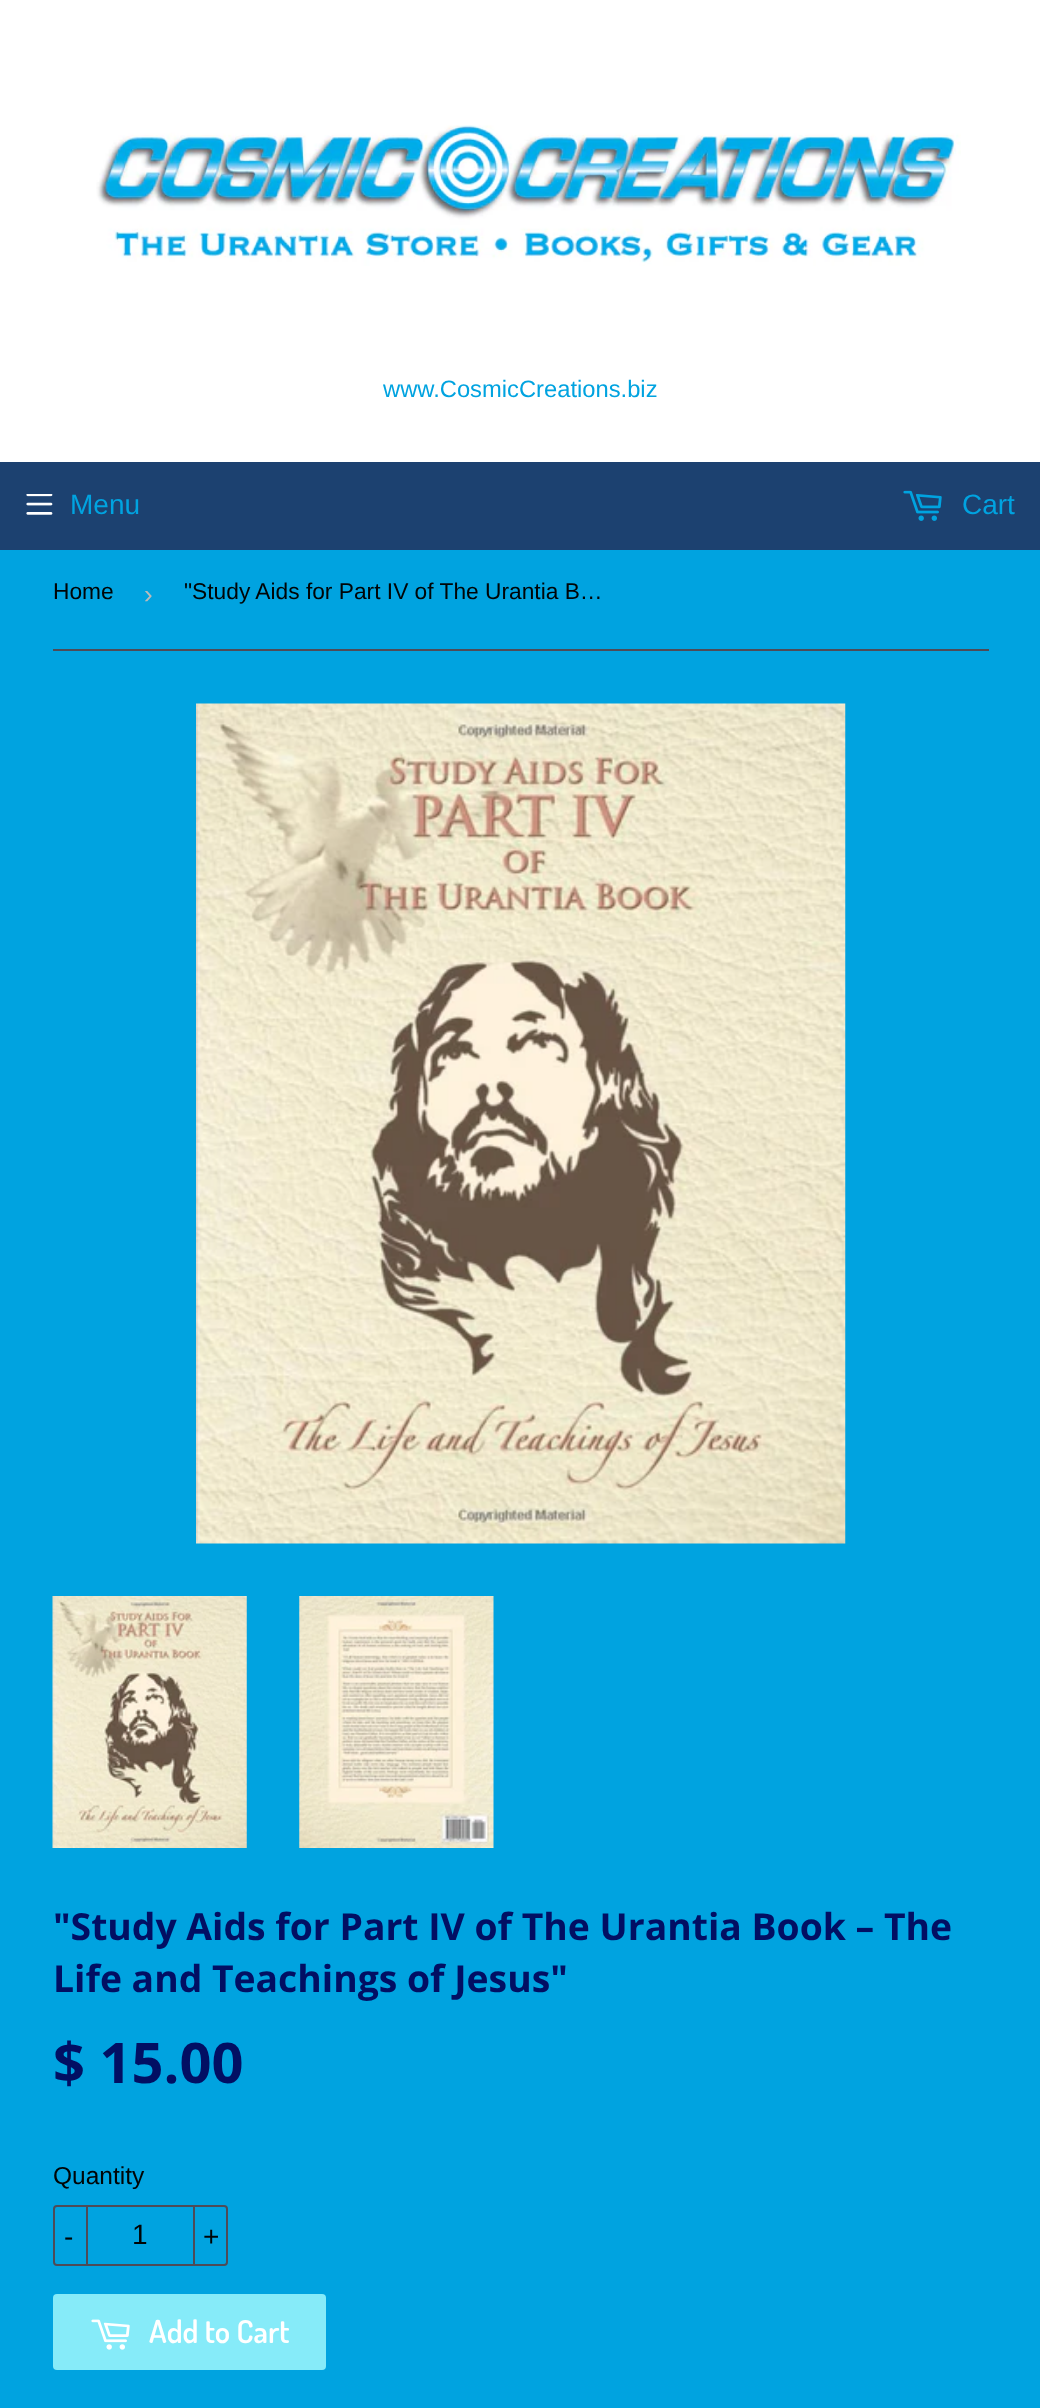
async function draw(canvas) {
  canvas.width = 1040;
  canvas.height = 2408;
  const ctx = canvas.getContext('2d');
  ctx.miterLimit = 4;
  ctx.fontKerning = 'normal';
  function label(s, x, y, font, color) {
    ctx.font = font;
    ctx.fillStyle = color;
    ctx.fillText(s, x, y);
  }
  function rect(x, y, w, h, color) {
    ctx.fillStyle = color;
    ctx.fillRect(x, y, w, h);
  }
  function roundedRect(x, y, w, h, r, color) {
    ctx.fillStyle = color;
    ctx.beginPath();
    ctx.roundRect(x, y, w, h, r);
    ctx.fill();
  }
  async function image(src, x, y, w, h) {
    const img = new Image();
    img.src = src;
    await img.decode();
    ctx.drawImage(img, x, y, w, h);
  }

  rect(0, 0, 1040, 2408, '#00a3e0');
  rect(0, 0, 1040, 462, '#fff');
  await image('assets/img1.png', 96, 125, 865, 141);
  label('www.CosmicCreations.biz', 383, 397, '23.75px Liberation Sans', '#00a3e0');
  rect(0, 462, 1040, 88, '#1c4170');
  await image('assets/img2.png', 26, 494, 27, 21);
  label('Menu', 70, 514, '28px Liberation Sans', '#00a3e0');
  await image('assets/img3.png', 903, 490, 39, 31);
  label('Cart', 962, 514, '28px Liberation Sans', '#00a3e0');
  rect(53, 649, 936, 2, '#4e4b57');
  label('Home', 53, 599, '22.75px Liberation Sans', '#000506');
  label('›', 144, 603, '26px Liberation Sans', '#bbb');
  label('"Study Aids for Part IV of The Urantia B…', 184, 599, '22.75px Liberation Sans', '#000506');
  await image('assets/img4.png', 196, 703, 650, 841);
  await image('assets/img5.png', 52, 1596, 195, 252);
  await image('assets/img6.png', 299, 1596, 195, 252);
  label('"Study Aids for Part IV of The Urantia Book – The', 53, 1940, 'bold 37.3px Open Sans', '#020f63');
  label('Life and Teachings of Jesus"', 53, 1992, 'bold 37.3px Open Sans', '#020f63');
  label('$ 15.00', 53, 2083, 'bold 56px Open Sans', '#020f63');
  label('Quantity', 53, 2184, '24.5px Liberation Sans', '#000506');
  ctx.beginPath();
  ctx.roundRect(54, 2206, 173, 59, 3);
  ctx.strokeStyle = '#4e4b57';
  ctx.lineWidth = 2;
  ctx.stroke();
  rect(86, 2205, 2, 61, '#4e4b57');
  label('-', 64, 2246, '28px Liberation Sans', '#000506');
  label('1', 132, 2244, '28px Liberation Sans', '#000506');
  rect(193, 2205, 2, 61, '#4e4b57');
  label('+', 203, 2246, '28px Liberation Sans', '#000506');
  roundedRect(53, 2294, 273, 76, 4, '#86ebf9');
  await image('assets/img7.png', 91, 2319, 39, 31);
  label('Add to Cart', 149, 2343, '600 31.5px Dosis', '#fff');
}

draw(document.querySelector('canvas'));
